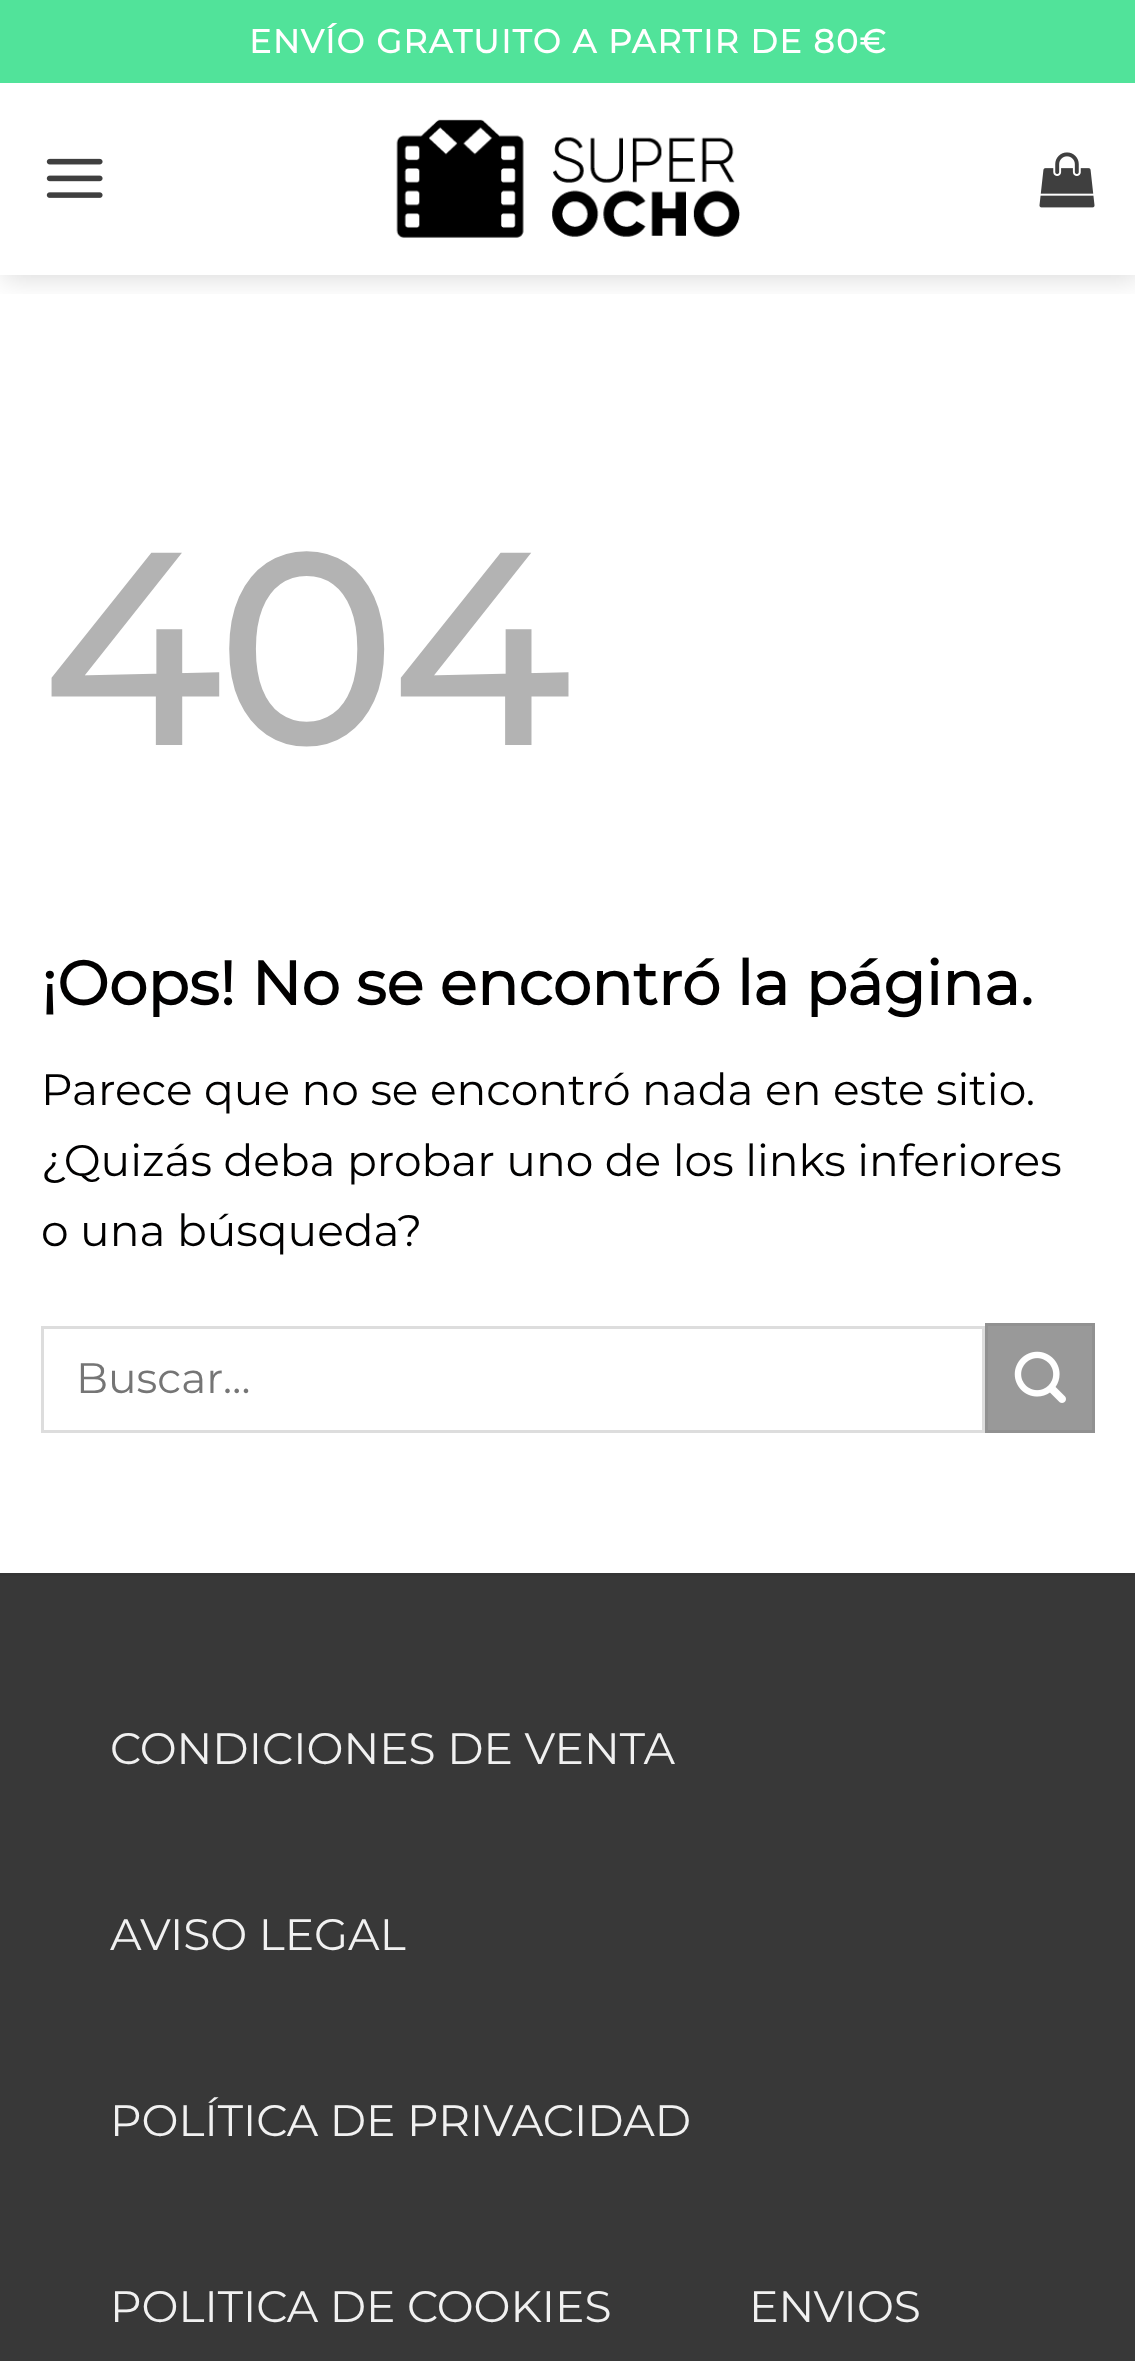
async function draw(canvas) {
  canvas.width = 1135;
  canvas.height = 2361;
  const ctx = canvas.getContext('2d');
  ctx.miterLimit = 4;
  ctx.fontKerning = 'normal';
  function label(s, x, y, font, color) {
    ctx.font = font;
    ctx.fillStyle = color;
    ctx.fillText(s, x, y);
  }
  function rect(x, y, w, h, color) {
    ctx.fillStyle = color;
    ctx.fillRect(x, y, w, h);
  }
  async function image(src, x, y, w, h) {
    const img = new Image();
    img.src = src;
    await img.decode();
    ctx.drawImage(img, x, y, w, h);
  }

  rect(0, 0, 1135, 2361, '#fff');
  ctx.save();
  ctx.beginPath();
  ctx.rect(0, 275, 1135, 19);
  ctx.clip();
  ctx.fillStyle = '#00000026';
  ctx.filter = 'blur(14px)';
  ctx.beginPath();
  ctx.rect(3, 3, 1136, 275);
  ctx.fill();
  ctx.filter = 'none';
  ctx.restore();
  rect(0, 0, 1135, 83, '#51e39a');
  ctx.letterSpacing = '1.65px';
  label('ENVÍO GRATUITO A PARTIR DE 80€', 249, 53, 'bold 33px Montserrat', '#fff');
  await image('assets/img1.png', 46, 158, 57, 40);
  await image('assets/img2.png', 396, 119, 344, 119);
  await image('assets/img3.png', 1039, 152, 56, 56);
  ctx.letterSpacing = '0px';
  label('404', 41, 745, 'bold 264px Montserrat', '#b3b3b3');
  label('¡Oops! No se encontró la página.', 41, 1005, 'bold 61.6px Montserrat', '#010000');
  label('Parece que no se encontró nada en este sitio.', 41, 1105, '100 44px Montserrat', '#010000');
  label('¿Quizás deba probar uno de los links inferiores', 41, 1176, '100 44px Montserrat', '#010000');
  label('o una búsqueda?', 41, 1246, '100 44px Montserrat', '#010000');
  ctx.strokeStyle = '#ddd';
  ctx.lineWidth = 3;
  ctx.strokeRect(42.5, 1327.5, 941, 104);
  label('Buscar…', 76, 1393, '100 42.5px Montserrat', '#757575');
  ctx.fillStyle = '#999';
  ctx.beginPath();
  ctx.rect(986.5, 1324.5, 107, 107);
  ctx.fill();
  ctx.strokeStyle = '#919191';
  ctx.stroke();
  await image('assets/img4.png', 1014, 1351, 52, 52);
  rect(0, 1576, 1135, 785, '#383838');
  rect(0, 1573, 1135, 3, '#353535');
  label('CONDICIONES DE VENTA', 110, 1764, '100 44px Montserrat', '#f1f1f1');
  label('AVISO LEGAL', 110, 1950, '100 44px Montserrat', '#f1f1f1');
  label('POLÍTICA DE PRIVACIDAD', 110, 2136, '100 44px Montserrat', '#f1f1f1');
  label('POLITICA DE COOKIES', 110, 2322, '100 44px Montserrat', '#f1f1f1');
  label('ENVIOS', 749, 2322, '100 44px Montserrat', '#f1f1f1');
}

draw(document.querySelector('canvas'));
